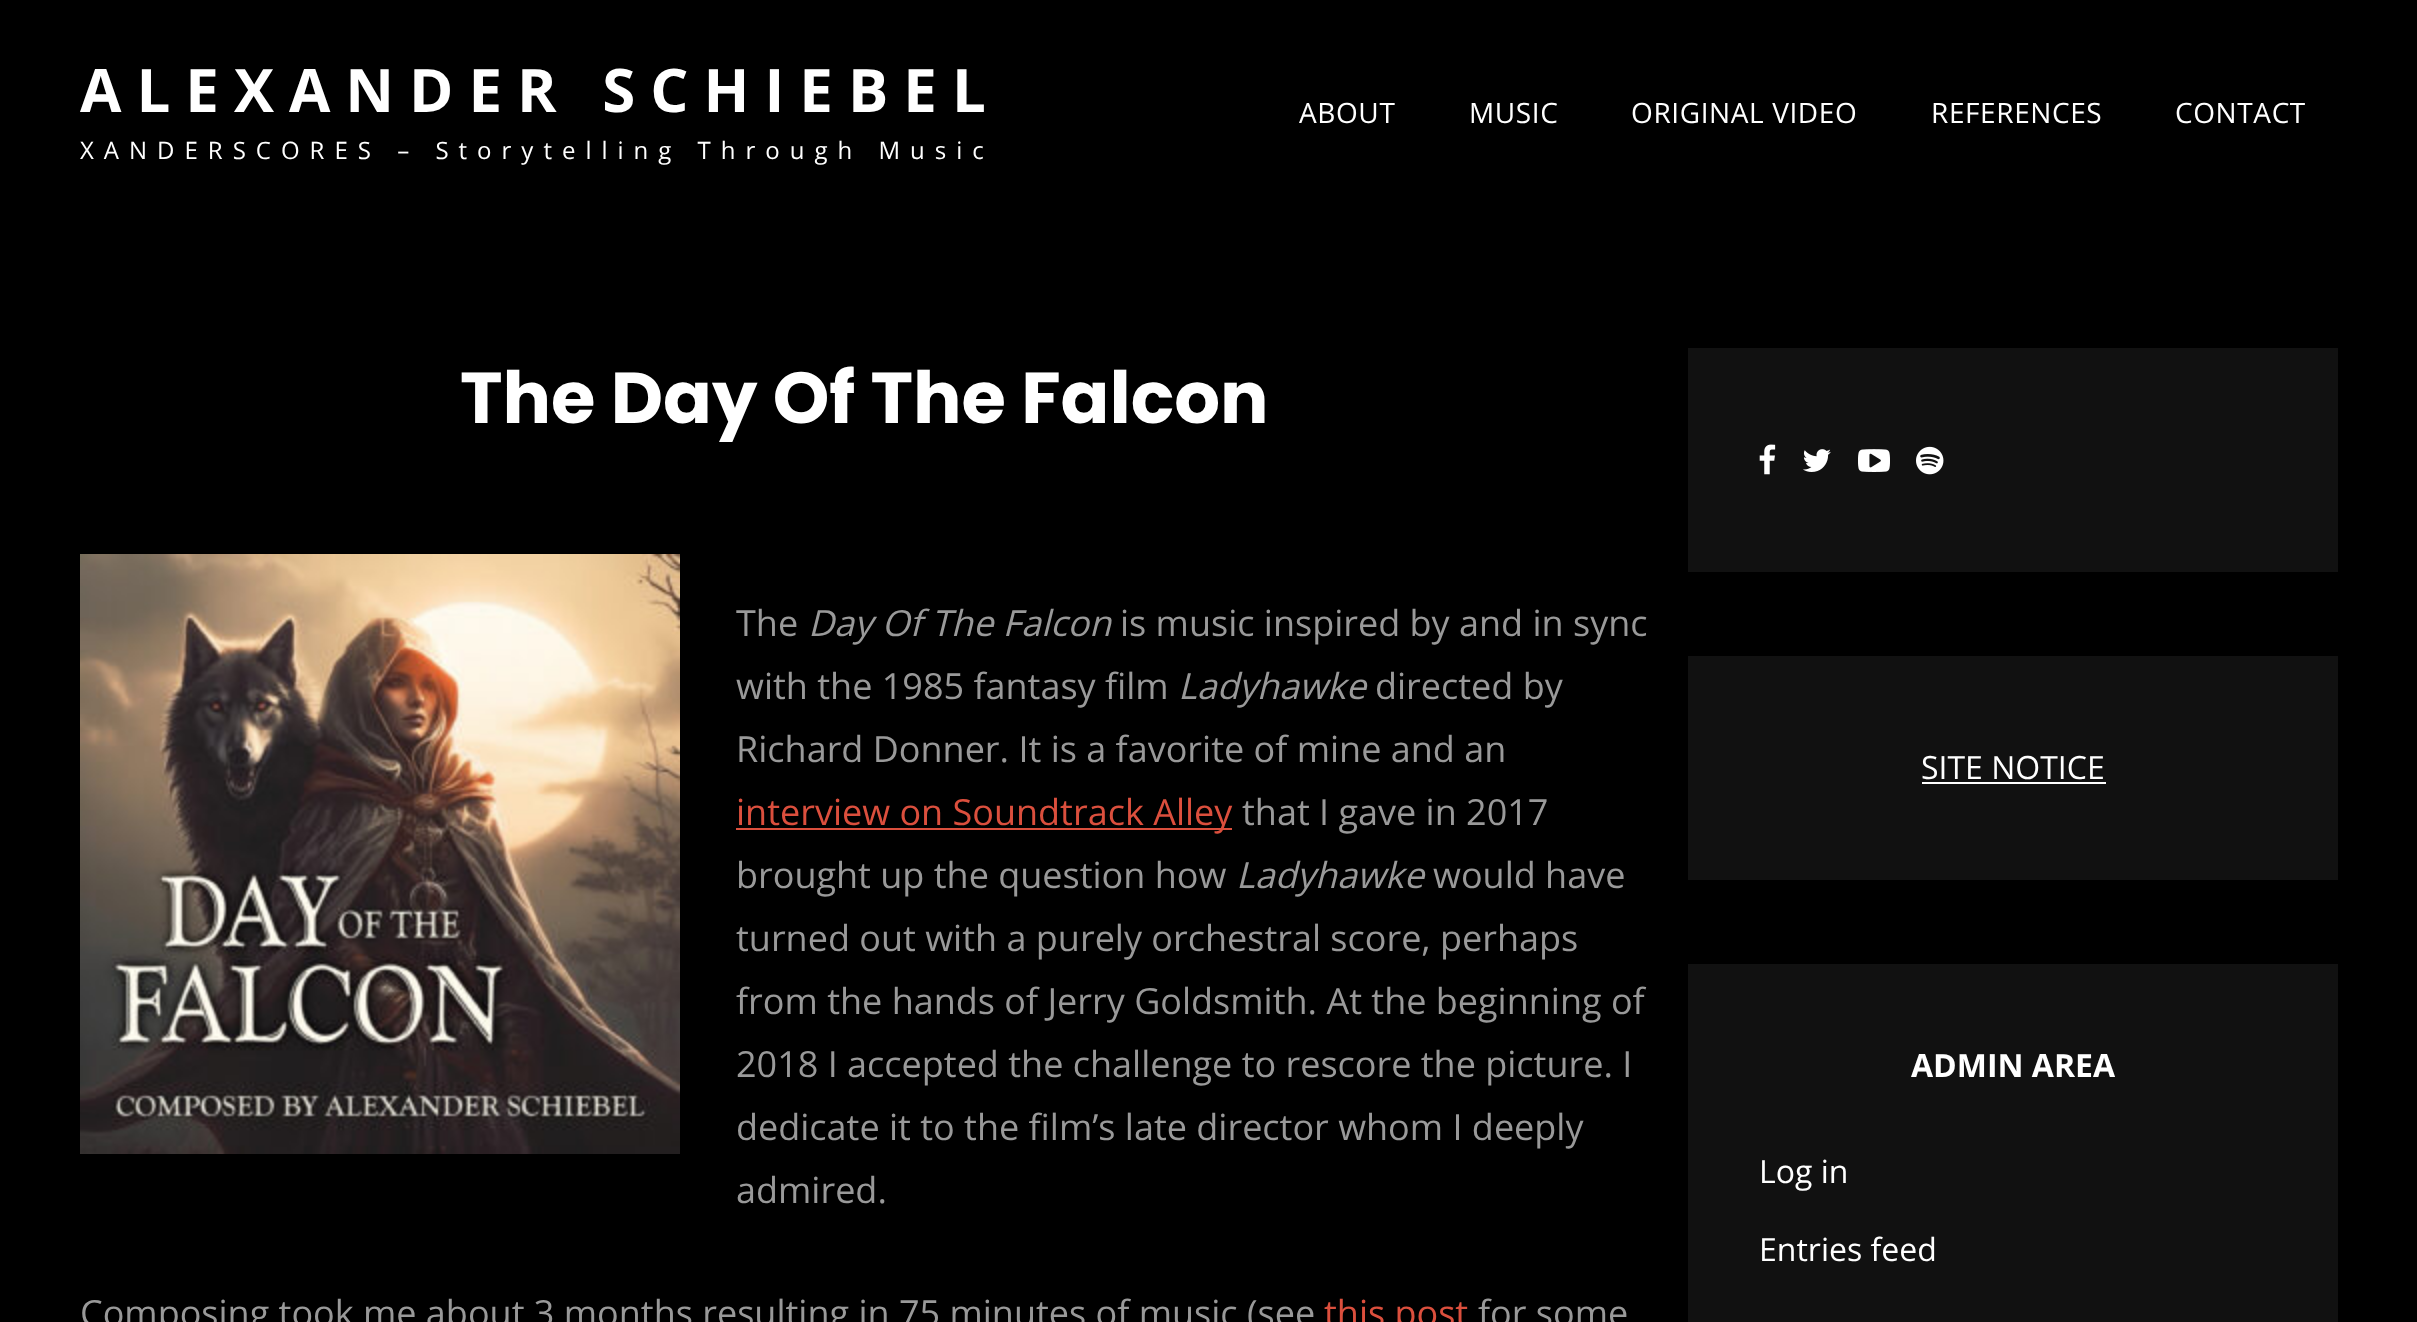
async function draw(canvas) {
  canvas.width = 2417;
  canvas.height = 1322;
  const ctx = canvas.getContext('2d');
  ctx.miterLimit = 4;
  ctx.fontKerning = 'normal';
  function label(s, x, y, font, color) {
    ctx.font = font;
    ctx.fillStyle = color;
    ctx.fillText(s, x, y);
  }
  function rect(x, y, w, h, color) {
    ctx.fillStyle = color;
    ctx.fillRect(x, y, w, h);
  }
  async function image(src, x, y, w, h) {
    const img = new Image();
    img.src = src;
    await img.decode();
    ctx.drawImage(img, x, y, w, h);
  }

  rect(0, 0, 2417, 1322, '#000');
  ctx.letterSpacing = '15px';
  label('ALEXANDER SCHIEBEL', 80, 112, 'bold 60px Open Sans', '#fff');
  ctx.letterSpacing = '10px';
  label('XANDERSCORES – Storytelling Through Music', 80, 159, '24px Open Sans', '#fff');
  ctx.letterSpacing = '0.6px';
  label('ABOUT', 1299, 123, '28px Open Sans', '#fff');
  label('MUSIC', 1469, 123, '28px Open Sans', '#fff');
  label('ORIGINAL VIDEO', 1631, 123, '28px Open Sans', '#fff');
  label('REFERENCES', 1931, 123, '28px Open Sans', '#fff');
  label('CONTACT', 2175, 123, '28px Open Sans', '#fff');
  ctx.letterSpacing = '0px';
  label('The Day Of The Falcon', 460, 423, 'bold 72px Poppins', '#fff');
  await image('assets/img1.png', 80, 554, 600, 600);
  label('The', 736, 636, '36px Open Sans', '#999');
  label('Day Of The Falcon', 808, 636, 'italic 36px Open Sans', '#999');
  label('is music inspired by and in sync', 1120, 636, '36px Open Sans', '#999');
  label('with the 1985 fantasy film', 736, 699, '36px Open Sans', '#999');
  label('Ladyhawke', 1178, 699, 'italic 36px Open Sans', '#999');
  label('directed by', 1375, 699, '36px Open Sans', '#999');
  label('Richard Donner. It is a favorite of mine and an', 736, 762, '36px Open Sans', '#999');
  rect(736, 828, 496, 2, '#db4f3d');
  label('interview on Soundtrack Alley', 736, 825, '36px Open Sans', '#db4f3d');
  label('that I gave in 2017', 1242, 825, '36px Open Sans', '#999');
  label('brought up the question how', 736, 888, '36px Open Sans', '#999');
  label('Ladyhawke', 1236, 888, 'italic 36px Open Sans', '#999');
  label('would have', 1433, 888, '36px Open Sans', '#999');
  label('turned out with a purely orchestral score, perhaps', 736, 951, '36px Open Sans', '#999');
  label('from the hands of Jerry Goldsmith. At the beginning of', 736, 1014, '36px Open Sans', '#999');
  label('2018 I accepted the challenge to rescore the picture. I', 736, 1077, '36px Open Sans', '#999');
  label('dedicate it to the film’s late director whom I deeply', 736, 1140, '36px Open Sans', '#999');
  label('admired.', 736, 1203, '36px Open Sans', '#999');
  label('Composing took me about 3 months resulting in 75 minutes of music (see', 80, 1326, '36px Open Sans', '#999');
  label('this post', 1324, 1326, '36px Open Sans', '#db4f3d');
  label('for some', 1478, 1326, '36px Open Sans', '#999');
  rect(1688, 348, 650, 224, '#111');
  await image('assets/img2.png', 1759, 444, 17, 31);
  await image('assets/img3.png', 1803, 449, 28, 23);
  await image('assets/img4.png', 1858, 449, 32, 23);
  await image('assets/img5.png', 1916, 446, 28, 29);
  rect(1688, 656, 650, 224, '#111');
  label('SITE NOTICE', 1921, 779, '32px Open Sans', '#fff');
  rect(1922, 782, 184, 2, '#fff');
  rect(1688, 964, 650, 358, '#111');
  label('ADMIN AREA', 1911, 1077, 'bold 32px Open Sans', '#fff');
  label('Log in', 1759, 1183, '32px Open Sans', '#fff');
  label('Entries feed', 1759, 1261, '32px Open Sans', '#fff');
}

draw(document.querySelector('canvas'));
